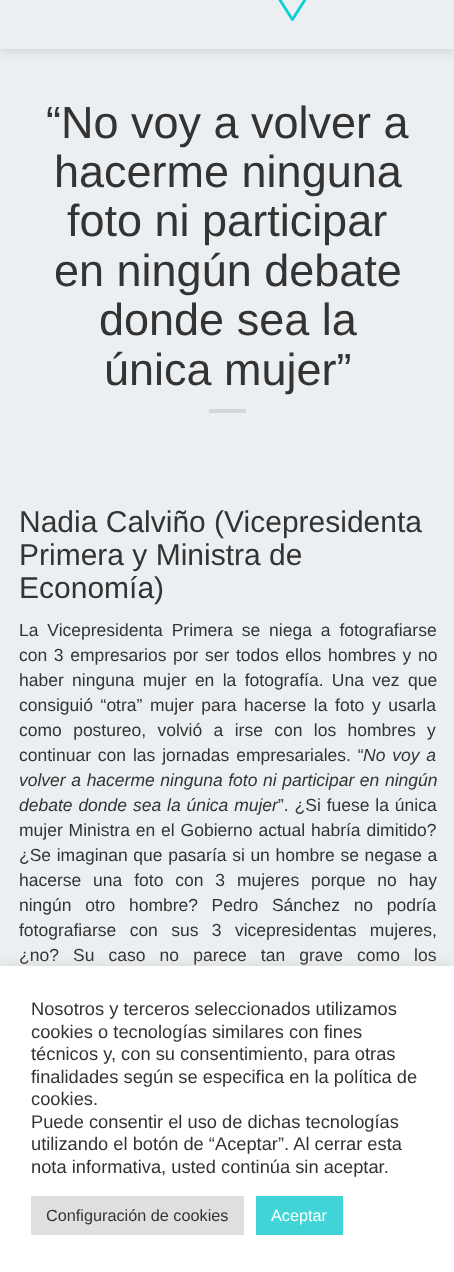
async function draw(canvas) {
  canvas.width = 454;
  canvas.height = 1272;
  const ctx = canvas.getContext('2d');
  ctx.miterLimit = 4;
  ctx.fontKerning = 'normal';
  function label(s, x, y, font, color) {
    ctx.font = font;
    ctx.fillStyle = color;
    ctx.fillText(s, x, y);
  }
  function rect(x, y, w, h, color) {
    ctx.fillStyle = color;
    ctx.fillRect(x, y, w, h);
  }
  async function image(src, x, y, w, h) {
    const img = new Image();
    img.src = src;
    await img.decode();
    ctx.drawImage(img, x, y, w, h);
  }

  rect(0, 0, 454, 1272, '#eceff1');
  ctx.fillStyle = '#00000026';
  ctx.filter = 'blur(6px)';
  ctx.beginPath();
  ctx.rect(1, -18, 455, 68);
  ctx.fill();
  ctx.filter = 'none';
  rect(0, 0, 454, 49, '#eceff1');
  await image('assets/img1.png', 278, 0, 29, 21);
  label('“No voy a volver a', 46, 138, '45px Liberation Sans', '#333');
  label('hacerme ninguna', 54, 187, '45px Liberation Sans', '#333');
  label('foto ni participar', 67, 236, '45px Liberation Sans', '#333');
  label('en ningún debate', 54, 286, '45px Liberation Sans', '#333');
  label('donde sea la', 99, 335, '45px Liberation Sans', '#333');
  label('única mujer”', 104, 385, '45px Liberation Sans', '#333');
  rect(209, 409, 37, 4, '#d4d7d9');
  label('Nadia Calviño (Vicepresidenta', 19, 532, '30px Liberation Sans', '#333');
  label('Primera y Ministra de', 19, 565, '30px Liberation Sans', '#333');
  label('Economía)', 19, 598, '30px Liberation Sans', '#333');
  ctx.wordSpacing = '4px';
  label('La Vicepresidenta Primera se niega a fotografiarse', 19, 636, '17.5px Liberation Sans', '#333');
  ctx.wordSpacing = '1.75px';
  label('con 3 empresarios por ser todos ellos hombres y no', 19, 661, '17.5px Liberation Sans', '#333');
  ctx.wordSpacing = '3.5px';
  label('haber ninguna mujer en la fotografía. Una vez que', 19, 686, '17.5px Liberation Sans', '#333');
  ctx.wordSpacing = '2.75px';
  label('consiguió “otra” mujer para hacerse la foto y usarla', 19, 711, '17.5px Liberation Sans', '#333');
  ctx.wordSpacing = '6.5px';
  label('como postureo, volvió a irse con los hombres y', 19, 736, '17.5px Liberation Sans', '#333');
  ctx.wordSpacing = '2px';
  label('continuar con las jornadas empresariales. “', 19, 761, '17.5px Liberation Sans', '#333');
  label('No voy a', 363, 761, 'italic 17.5px Liberation Sans', '#333');
  ctx.wordSpacing = '0.75px';
  label('volver a hacerme ninguna foto ni participar en ningún', 19, 786, 'italic 17.5px Liberation Sans', '#333');
  ctx.wordSpacing = '1px';
  label('debate donde sea la única mujer', 19, 811, 'italic 17.5px Liberation Sans', '#333');
  label('”. ¿Si fuese la única', 278, 811, '17.5px Liberation Sans', '#333');
  label('mujer Ministra en el Gobierno actual habría dimitido?', 19, 836, '17.5px Liberation Sans', '#333');
  ctx.wordSpacing = '0.75px';
  label('¿Se imaginan que pasaría si un hombre se negase a', 19, 861, '17.5px Liberation Sans', '#333');
  ctx.wordSpacing = '7px';
  label('hacerse una foto con 3 mujeres porque no hay', 19, 886, '17.5px Liberation Sans', '#333');
  ctx.wordSpacing = '8.75px';
  label('ningún otro hombre? Pedro Sánchez no podría', 19, 911, '17.5px Liberation Sans', '#333');
  ctx.wordSpacing = '8.5px';
  label('fotografiarse con sus 3 vicepresidentas mujeres,', 19, 936, '17.5px Liberation Sans', '#333');
  ctx.wordSpacing = '9.25px';
  label('¿no? Su caso no parece tan grave como los', 19, 961, '17.5px Liberation Sans', '#333');
  ctx.fillStyle = '#acabab4d';
  ctx.filter = 'blur(6px)';
  ctx.beginPath();
  ctx.rect(0, 965, 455, 306);
  ctx.fill();
  ctx.filter = 'none';
  rect(0, 966, 454, 306, '#fff');
  ctx.wordSpacing = '0px';
  label('Nosotros y terceros seleccionados utilizamos', 31, 1015, '18.3px Liberation Sans', '#333');
  label('cookies o tecnologías similares con fines', 31, 1038, '18.3px Liberation Sans', '#333');
  label('técnicos y, con su consentimiento, para otras', 31, 1060, '18.3px Liberation Sans', '#333');
  label('finalidades según se especifica en la política de', 31, 1083, '18.3px Liberation Sans', '#333');
  label('cookies.', 31, 1105, '18.3px Liberation Sans', '#333');
  label('Puede consentir el uso de dichas tecnologías', 31, 1128, '18.3px Liberation Sans', '#333');
  label('utilizando el botón de “Aceptar”. Al cerrar esta', 31, 1150, '18.3px Liberation Sans', '#333');
  label('nota informativa, usted continúa sin aceptar.', 31, 1173, '18.3px Liberation Sans', '#333');
  rect(31, 1196, 213, 39, '#dedfe0');
  label('Configuración de cookies', 46, 1221, '16.25px Liberation Sans', '#333');
  rect(256, 1196, 87, 39, '#41d4d6');
  label('Aceptar', 271, 1221, '16.25px Liberation Sans', '#fff');
}

draw(document.querySelector('canvas'));
